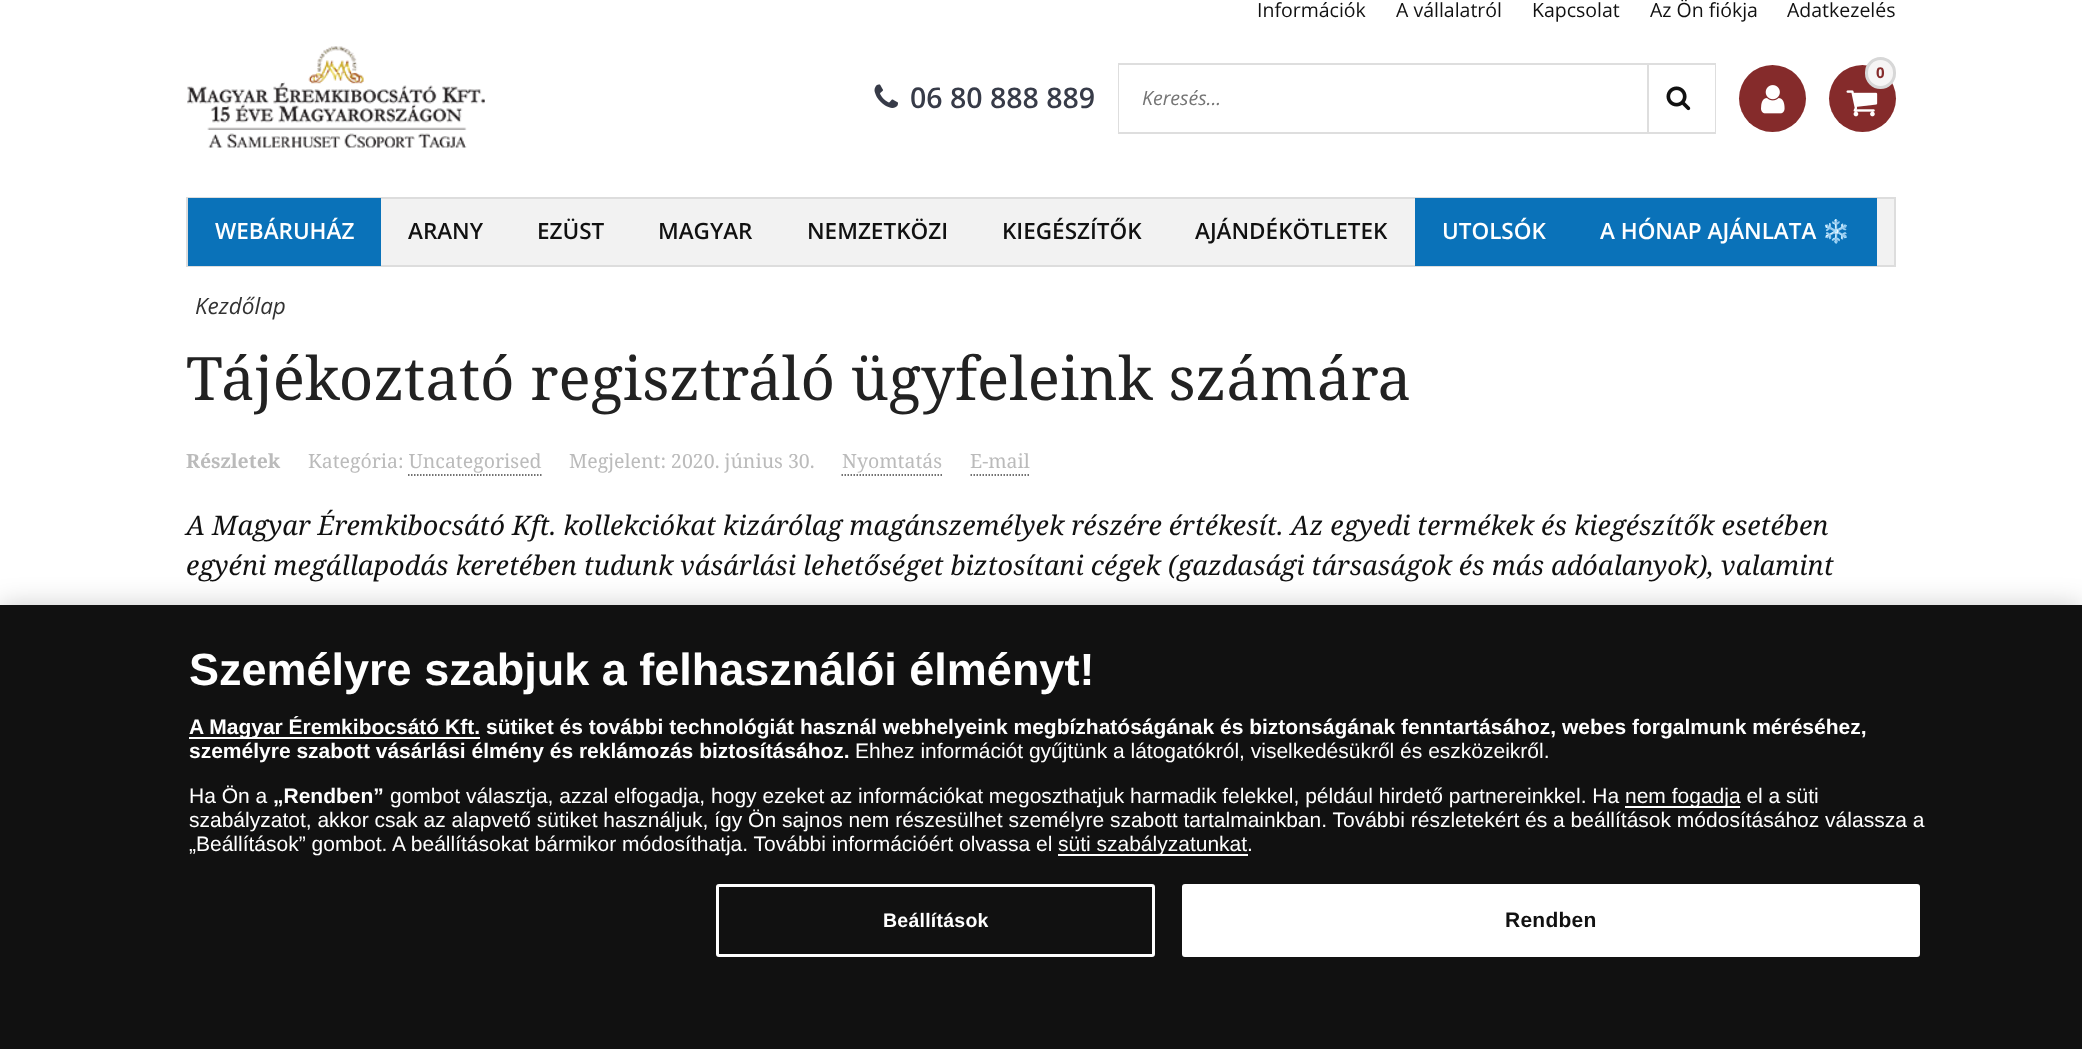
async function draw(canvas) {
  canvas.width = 2082;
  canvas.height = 1049;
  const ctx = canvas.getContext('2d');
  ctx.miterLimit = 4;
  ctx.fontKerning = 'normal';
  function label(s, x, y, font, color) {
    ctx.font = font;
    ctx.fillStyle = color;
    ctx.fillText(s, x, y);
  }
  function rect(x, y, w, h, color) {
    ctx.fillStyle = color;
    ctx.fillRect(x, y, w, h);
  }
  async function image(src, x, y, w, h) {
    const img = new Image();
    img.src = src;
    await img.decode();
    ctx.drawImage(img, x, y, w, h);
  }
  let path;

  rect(0, 0, 2082, 1049, '#fff');
  label('Információk', 1257, 17, '19.5px Open Sans', '#111');
  label('A vállalatról', 1396, 17, '19.5px Open Sans', '#111');
  label('Kapcsolat', 1532, 17, '19.5px Open Sans', '#111');
  label('Az Ön fiókja', 1650, 17, '19.5px Open Sans', '#111');
  label('Adatkezelés', 1787, 17, '19.5px Open Sans', '#111');
  await image('assets/img1.png', 187, 46, 298, 102);
  ctx.fillStyle = '#852b2b';
  ctx.beginPath();
  ctx.arc(1772.5, 98.5, 33.5, 0, 2 * Math.PI);
  ctx.fill();
  await image('assets/img2.png', 1761, 85, 24, 29);
  ctx.beginPath();
  ctx.arc(1862.5, 98.5, 33.5, 0, 2 * Math.PI);
  ctx.fill();
  ctx.fillStyle = '#f6f5f5';
  ctx.beginPath();
  ctx.roundRect(1866.5, 58.5, 28, 29, 14);
  ctx.fill();
  ctx.strokeStyle = '#d7d7d7';
  ctx.lineWidth = 3;
  ctx.stroke();
  label('0', 1876, 78, 'bold 15px Open Sans', '#852b2b');
  await image('assets/img3.png', 1846, 90, 32, 27);
  await image('assets/img4.png', 874, 84, 24, 24);
  label('06 80 888 889', 910, 108, '600 28.5px Open Sans', '#373b48');
  ctx.strokeStyle = '#dedede';
  ctx.lineWidth = 2;
  ctx.strokeRect(1119, 64, 596, 69);
  rect(1119, 65, 1, 67, '#fff');
  label('Keresés...', 1142, 105, 'italic 19.5px Open Sans', '#757575');
  rect(1714, 65, 1, 67, '#fff');
  rect(1647, 65, 2, 67, '#dedede');
  await image('assets/img5.png', 1666, 86, 25, 25);
  rect(381, 199, 1513, 66, '#f2f2f2');
  ctx.strokeStyle = '#ddd';
  ctx.strokeRect(187, 198, 1708, 68);
  rect(188, 198, 193, 68, '#0a72b9');
  label('WEBÁRUHÁZ', 215, 239, '600 22.5px Open Sans', '#fff');
  label('ARANY', 408, 239, '600 22.5px Open Sans', '#111');
  label('EZÜST', 537, 239, '600 22.5px Open Sans', '#111');
  label('MAGYAR', 658, 239, '600 22.5px Open Sans', '#111');
  label('NEMZETKÖZI', 807, 239, '600 22.5px Open Sans', '#111');
  label('KIEGÉSZÍTŐK', 1002, 239, '600 22.5px Open Sans', '#111');
  label('AJÁNDÉKÖTLETEK', 1195, 239, '600 22.5px Open Sans', '#111');
  rect(1415, 198, 462, 68, '#0a72b9');
  label('UTOLSÓK', 1442, 239, '600 22.5px Open Sans', '#fff');
  label('A HÓNAP AJÁNLATA', 1600, 239, '600 22.5px Open Sans', '#fff');
  label('❄️', 1822, 239, 'bold 22.5px Noto Color Emoji', '#fff');
  label('Kezdőlap', 195, 314, 'italic 22.5px Open Sans', '#333');
  label('Tájékoztató regisztráló ügyfeleink számára', 186, 400, '60px Noto Serif', '#222');
  label('Részletek', 186, 468, 'bold 19.5px Noto Serif', '#bbb');
  label('Kategória: Uncategorised', 308, 468, '19.5px Noto Serif', '#bbb');
  path = new Path2D('M408 475H541.5');
  ctx.strokeStyle = '#444';
  ctx.lineWidth = 1.5;
  ctx.setLineDash([1.5, 1.5]);
  ctx.stroke(path);
  label('Megjelent: 2020. június 30.', 569, 468, '19.5px Noto Serif', '#bbb');
  label('Nyomtatás', 842, 468, '19.5px Noto Serif', '#bbb');
  path = new Path2D('M841.5 475H942');
  ctx.stroke(path);
  label('E-mail', 970, 468, '19.5px Noto Serif', '#bbb');
  path = new Path2D('M970.5 475H1029');
  ctx.stroke(path);
  label('A Magyar Éremkibocsátó Kft. kollekciókat kizárólag magánszemélyek részére értékesít. Az egyedi termékek és kiegészítők esetében', 186, 535, 'italic 27px Noto Serif', '#111');
  label('egyéni megállapodás keretében tudunk vásárlási lehetőséget biztosítani cégek (gazdasági társaságok és más adóalanyok), valamint', 186, 575, 'italic 27px Noto Serif', '#111');
  ctx.fillStyle = '#00000033';
  ctx.filter = 'blur(13.5px)';
  ctx.beginPath();
  ctx.rect(0, 605, 2082, 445);
  ctx.fill();
  ctx.filter = 'none';
  rect(0, 605, 2082, 444, '#111');
  label('Személyre szabjuk a felhasználói élményt!', 189, 685, 'bold 45px Liberation Sans', '#fff');
  rect(189, 737, 291, 2, '#fff');
  ctx.save();
  ctx.beginPath();
  ctx.rect(189, 716, 1752, 162);
  ctx.clip();
  label('A Magyar Éremkibocsátó Kft.', 189, 734, 'bold 21px Liberation Sans', '#fff');
  ctx.restore();
  label('sütiket és további technológiát használ webhelyeink megbízhatóságának és biztonságának fenntartásához, webes forgalmunk méréséhez,', 486, 734, 'bold 21px Liberation Sans', '#fff');
  label('személyre szabott vásárlási élmény és reklámozás biztosításához.', 189, 758, 'bold 21px Liberation Sans', '#fff');
  label('Ehhez információt gyűjtünk a látogatókról, viselkedésükről és eszközeikről.', 855, 758, '21px Liberation Sans', '#fff');
  label('Ha Ön a', 189, 803, '21px Liberation Sans', '#fff');
  label('„Rendben”', 273, 803, 'bold 21px Liberation Sans', '#fff');
  label('gombot választja, azzal elfogadja, hogy ezeket az információkat megoszthatjuk harmadik felekkel, például hirdető partnereinkkel. Ha', 390, 803, '21px Liberation Sans', '#fff');
  rect(1625, 806, 115, 2, '#fff');
  label('nem fogadja el a süti', 1625, 803, '21px Liberation Sans', '#fff');
  label('szabályzatot, akkor csak az alapvető sütiket használjuk, így Ön sajnos nem részesülhet személyre szabott tartalmainkban. További részletekért és a beállítások módosításához válassza a', 189, 827, '21px Liberation Sans', '#fff');
  label('„Beállítások” gombot. A beállításokat bármikor módosíthatja. További információért olvassa el', 189, 851, '21px Liberation Sans', '#fff');
  rect(1058, 854, 190, 2, '#fff');
  label('süti szabályzatunkat.', 1058, 851, '21px Liberation Sans', '#fff');
  ctx.beginPath();
  ctx.roundRect(717.5, 885.5, 436, 70, 1.5);
  ctx.strokeStyle = '#fff';
  ctx.lineWidth = 3;
  ctx.setLineDash([]);
  ctx.stroke();
  ctx.letterSpacing = '0.25px';
  label('Beállítások', 883, 927, 'bold 19.5px Liberation Sans', '#fff');
  ctx.beginPath();
  ctx.roundRect(1183, 885, 736, 71, 2);
  ctx.fill();
  ctx.lineWidth = 2;
  ctx.stroke();
  label('Rendben', 1505, 927, 'bold 21px Liberation Sans', '#111');
}

draw(document.querySelector('canvas'));
